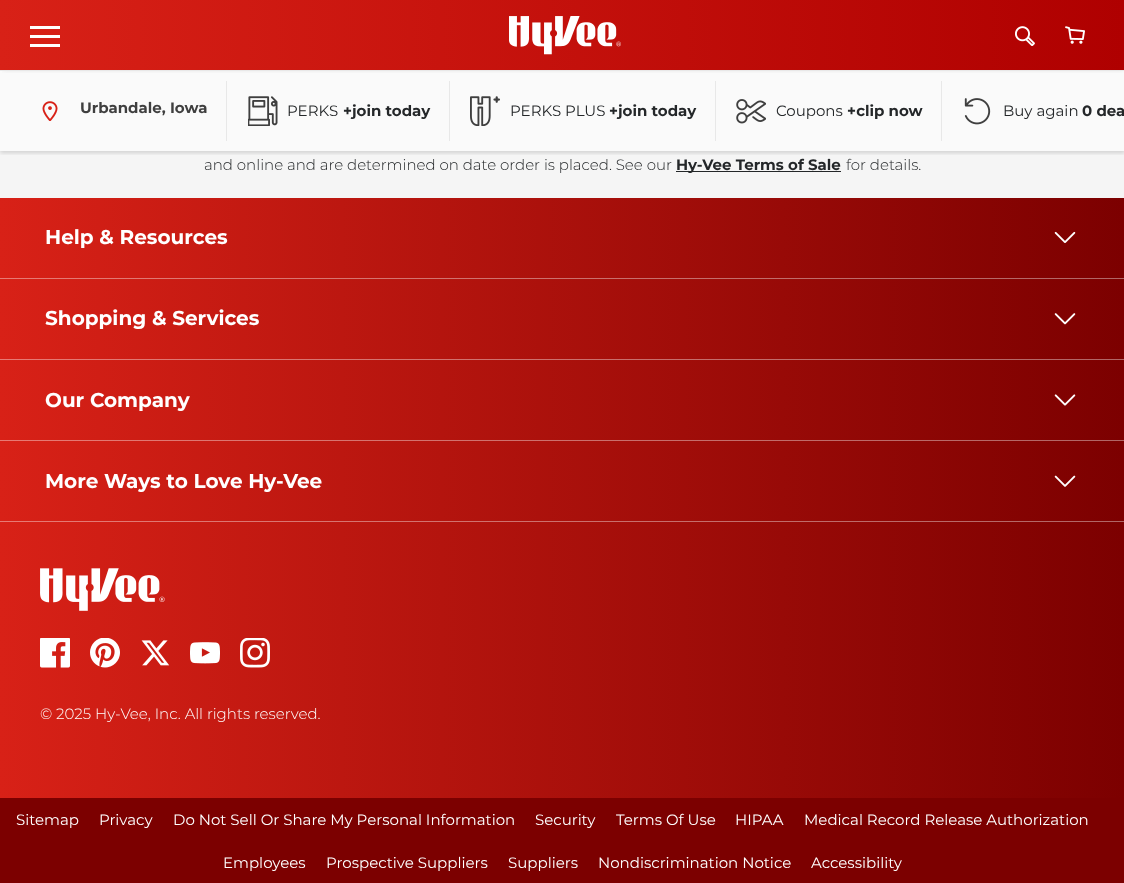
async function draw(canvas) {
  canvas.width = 1124;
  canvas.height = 883;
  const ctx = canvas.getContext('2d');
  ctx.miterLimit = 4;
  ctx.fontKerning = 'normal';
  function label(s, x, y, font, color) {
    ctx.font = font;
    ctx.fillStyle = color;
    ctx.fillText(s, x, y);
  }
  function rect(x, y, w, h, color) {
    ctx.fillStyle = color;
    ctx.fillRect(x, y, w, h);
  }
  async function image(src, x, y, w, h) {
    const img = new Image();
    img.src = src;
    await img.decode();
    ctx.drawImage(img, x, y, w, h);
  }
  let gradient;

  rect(0, 0, 1124, 883, '#fff');
  gradient = ctx.createLinearGradient(0, 35, 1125, 35);
  gradient.addColorStop(0, '#d82117');
  gradient.addColorStop(1, '#af0000');
  ctx.fillStyle = gradient;
  ctx.fillRect(0, 0, 1124, 70);
  ctx.save();
  ctx.beginPath();
  ctx.rect(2, 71, 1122, 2);
  ctx.clip();
  ctx.fillStyle = '#00000033';
  ctx.filter = 'blur(2.5px)';
  ctx.beginPath();
  ctx.rect(3, 5, 1120, 65);
  ctx.fill();
  ctx.filter = 'none';
  ctx.restore();
  rect(30, 35, 30, 3, '#fff');
  rect(30, 26, 30, 3, '#fff');
  rect(30, 44, 30, 3, '#fff');
  await image('assets/img1.png', 509, 16, 112, 39);
  await image('assets/img2.png', 1015, 26, 20, 20);
  await image('assets/img3.png', 1065, 26, 20, 18);
  rect(0, 70, 1124, 1, '#e8e8e8');
  rect(0, 151, 1124, 47, '#f5f5f5');
  ctx.save();
  ctx.beginPath();
  ctx.rect(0, 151, 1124, 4);
  ctx.clip();
  ctx.fillStyle = '#00000026';
  ctx.filter = 'blur(2px)';
  ctx.beginPath();
  ctx.rect(0, 73, 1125, 80);
  ctx.fill();
  ctx.filter = 'none';
  ctx.restore();
  rect(0, 71, 1124, 80, '#f5f5f580');
  await image('assets/img4.png', 42, 101, 16, 20);
  label('Urbandale, Iowa', 80, 113, 'bold 15px Montserrat', '#3f3f3f');
  rect(226, 81, 1, 60, '#e8e8e8');
  await image('assets/img5.png', 248, 96, 30, 30);
  label('PERKS', 287, 116, '15px Montserrat', '#242729');
  label('+join today', 343, 116, 'bold 15px Montserrat', '#242729');
  rect(449, 81, 1, 60, '#e8e8e8');
  await image('assets/img6.png', 470, 96, 30, 30);
  label('PERKS PLUS', 510, 116, '15px Montserrat', '#242729');
  label('+join today', 609, 116, 'bold 15px Montserrat', '#242729');
  rect(715, 81, 1, 60, '#e8e8e8');
  await image('assets/img7.png', 736, 99, 30, 25);
  label('Coupons', 776, 116, '15px Montserrat', '#242729');
  label('+clip now', 847, 116, 'bold 15px Montserrat', '#242729');
  rect(941, 81, 1, 60, '#e8e8e8');
  await image('assets/img8.png', 964, 98, 27, 27);
  label('Buy again', 1003, 116, '15px Montserrat', '#242729');
  label('0 dea', 1082, 116, 'bold 15px Montserrat', '#242729');
  gradient = ctx.createLinearGradient(0, 459, 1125, 459);
  gradient.addColorStop(0, '#d82117');
  gradient.addColorStop(1, '#7c0000');
  ctx.fillStyle = gradient;
  ctx.fillRect(0, 198, 1124, 600);
  gradient = ctx.createLinearGradient(0, 459, 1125, 459);
  gradient.addColorStop(0, '#e87a74');
  gradient.addColorStop(1, '#b06666');
  ctx.fillStyle = gradient;
  ctx.fillRect(0, 521, 1124, 1);
  ctx.fillRect(0, 440, 1124, 1);
  ctx.fillRect(0, 359, 1124, 1);
  ctx.fillRect(0, 278, 1124, 1);
  label('and online and are determined on date order is placed. See our', 204, 170, '300 15px Montserrat', '#242729');
  rect(676, 171, 165, 1, '#242729');
  label('Hy-Vee Terms of Sale', 676, 170, 'bold 15px Montserrat', '#242729');
  label('for details.', 846, 170, '300 15px Montserrat', '#242729');
  label('Help & Resources', 45, 244, 'bold 20px Montserrat', '#fff');
  await image('assets/img9.png', 1054, 231, 22, 12);
  label('Shopping & Services', 45, 325, 'bold 20px Montserrat', '#fff');
  await image('assets/img10.png', 1054, 313, 22, 12);
  label('Our Company', 45, 407, 'bold 20px Montserrat', '#fff');
  await image('assets/img11.png', 1054, 394, 22, 12);
  label('More Ways to Love Hy-Vee', 45, 488, 'bold 20px Montserrat', '#fff');
  await image('assets/img12.png', 1054, 475, 22, 12);
  await image('assets/img13.png', 40, 568, 125, 43);
  await image('assets/img14.png', 40, 638, 30, 30);
  await image('assets/img15.png', 90, 638, 30, 30);
  await image('assets/img16.png', 141, 640, 29, 26);
  await image('assets/img17.png', 190, 642, 30, 22);
  await image('assets/img18.png', 240, 638, 30, 30);
  label('© 2025 Hy-Vee, Inc. All rights reserved.', 40, 719, '300 15px Montserrat', '#fff');
  rect(0, 798, 1124, 85, '#7c0000');
  label('Sitemap', 16, 825, '15px Montserrat', '#fff');
  label('Privacy', 99, 825, '15px Montserrat', '#fff');
  label('Do Not Sell Or Share My Personal Information', 173, 825, '15px Montserrat', '#fff');
  label('Security', 535, 825, '15px Montserrat', '#fff');
  label('Terms Of Use', 616, 825, '15px Montserrat', '#fff');
  label('HIPAA', 735, 825, '15px Montserrat', '#fff');
  label('Medical Record Release Authorization', 804, 825, '15px Montserrat', '#fff');
  label('Employees', 223, 868, '15px Montserrat', '#fff');
  label('Prospective Suppliers', 326, 868, '15px Montserrat', '#fff');
  label('Suppliers', 508, 868, '15px Montserrat', '#fff');
  label('Nondiscrimination Notice', 598, 868, '15px Montserrat', '#fff');
  label('Accessibility', 811, 868, '15px Montserrat', '#fff');
}

draw(document.querySelector('canvas'));
